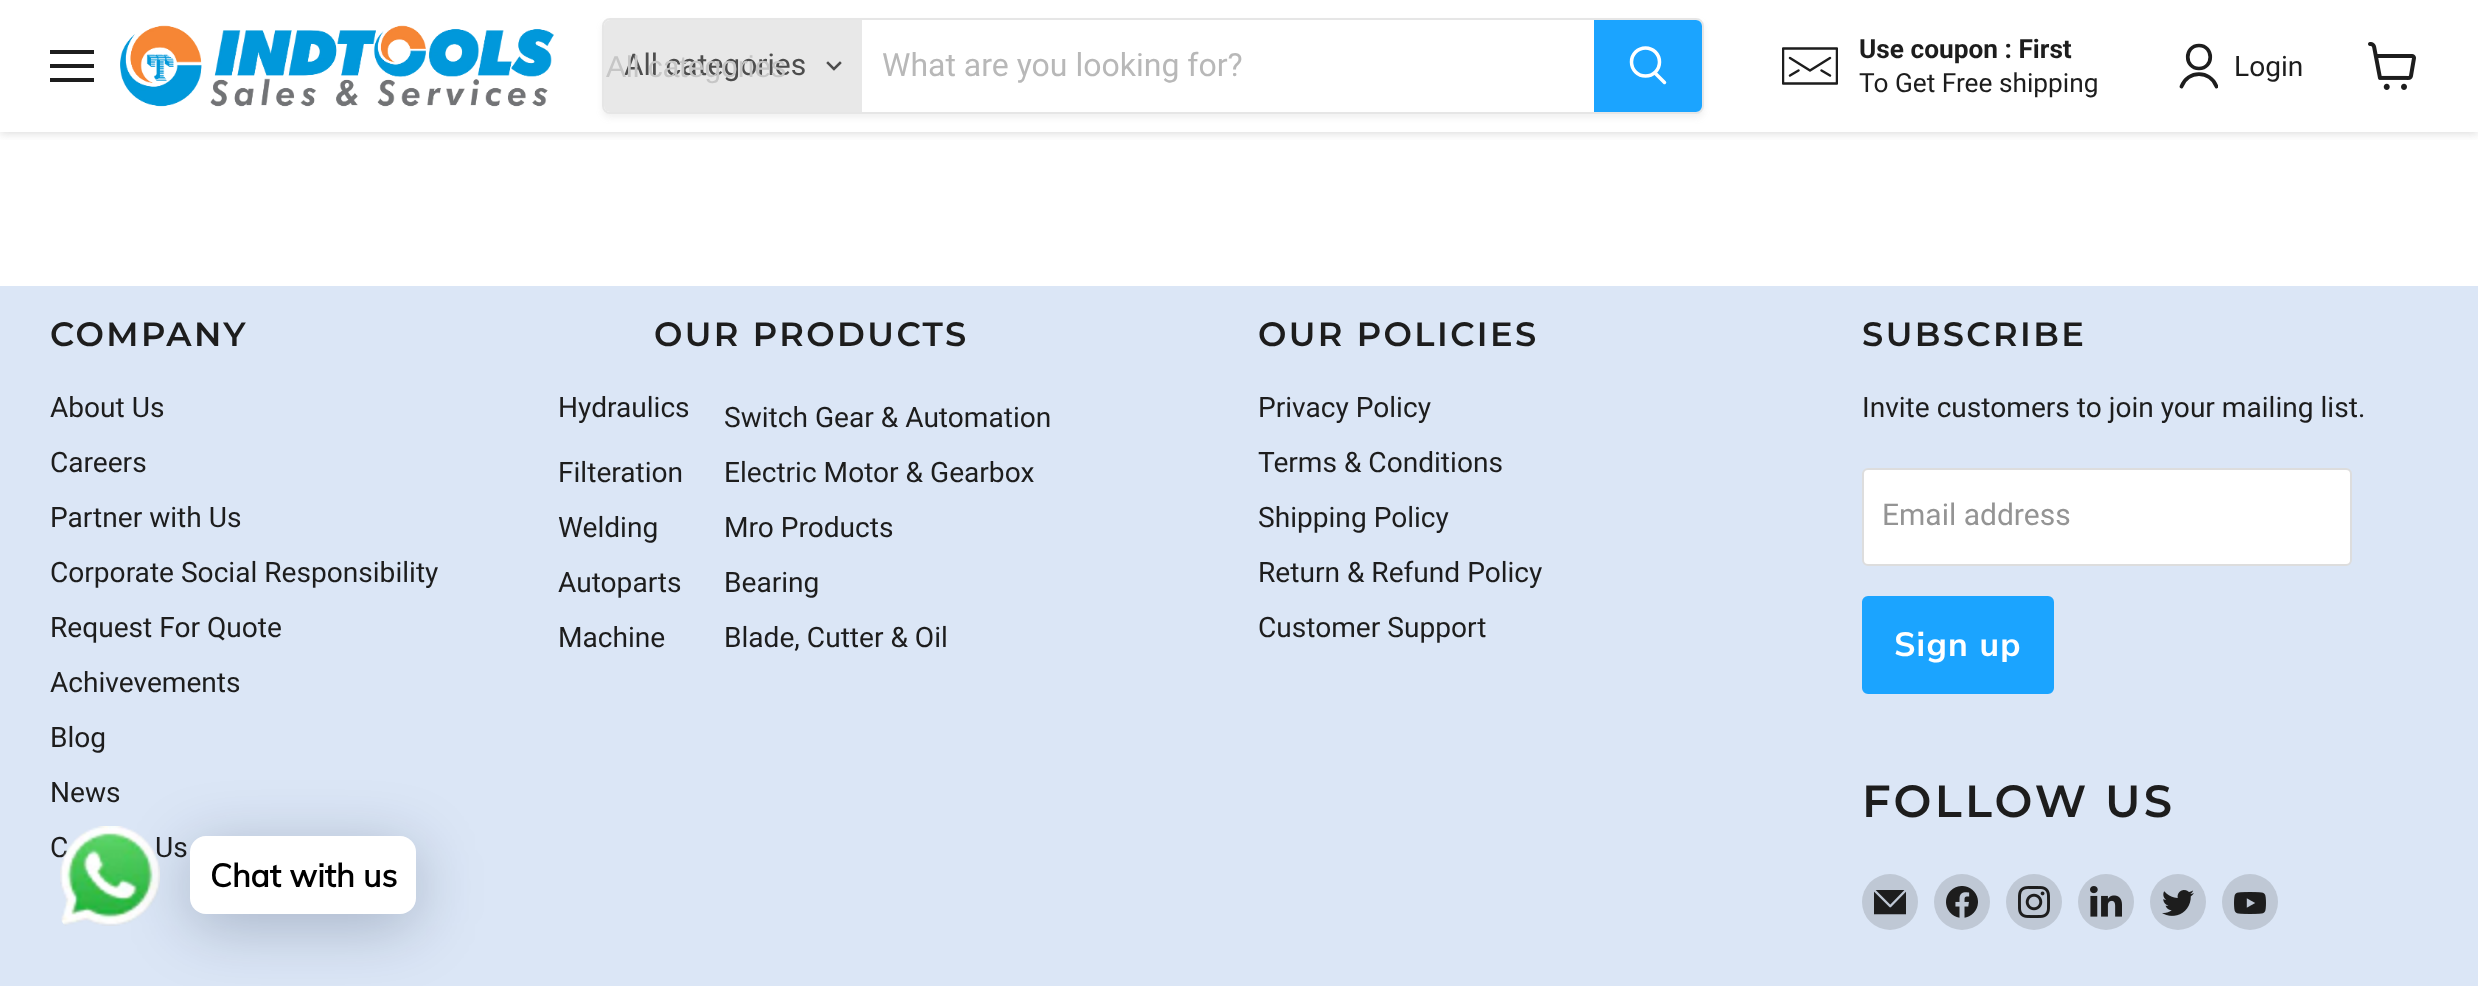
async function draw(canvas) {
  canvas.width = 2478;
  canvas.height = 986;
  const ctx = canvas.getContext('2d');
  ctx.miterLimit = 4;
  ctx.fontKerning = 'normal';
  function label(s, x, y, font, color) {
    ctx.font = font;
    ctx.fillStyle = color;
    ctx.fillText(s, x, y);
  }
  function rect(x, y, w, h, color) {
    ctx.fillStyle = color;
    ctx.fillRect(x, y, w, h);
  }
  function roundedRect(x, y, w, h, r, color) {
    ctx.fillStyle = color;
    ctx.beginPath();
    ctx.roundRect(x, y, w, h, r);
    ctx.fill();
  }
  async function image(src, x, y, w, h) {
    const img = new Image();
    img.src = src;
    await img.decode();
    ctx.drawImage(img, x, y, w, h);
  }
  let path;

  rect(0, 0, 2478, 986, '#fff');
  ctx.save();
  ctx.beginPath();
  ctx.rect(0, 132, 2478, 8);
  ctx.clip();
  ctx.fillStyle = '#80808040';
  ctx.filter = 'blur(4px)';
  ctx.beginPath();
  ctx.rect(0, 2, 2478, 132);
  ctx.fill();
  ctx.filter = 'none';
  ctx.restore();
  rect(50, 50, 44, 4, '#1d1d1d');
  rect(50, 64, 44, 4, '#1d1d1d');
  rect(50, 78, 44, 4, '#1d1d1d');
  await image('assets/img1.png', 120, 25, 434, 82);
  ctx.save();
  path = new Path2D('M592 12H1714V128H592ZM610 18H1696C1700.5 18 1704 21.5 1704 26V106C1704 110.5 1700.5 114 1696 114H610C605.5 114 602 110.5 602 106V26C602 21.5 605.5 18 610 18Z');
  ctx.clip(path, 'evenodd');
  ctx.fillStyle = '#8080801c';
  ctx.filter = 'blur(3px)';
  ctx.beginPath();
  ctx.roundRect(602, 22, 1102, 96, 8);
  ctx.fill();
  ctx.filter = 'none';
  ctx.restore();
  ctx.beginPath();
  ctx.roundRect(603, 19, 1100, 94, 7);
  ctx.strokeStyle = '#80808033';
  ctx.lineWidth = 2;
  ctx.stroke();
  ctx.fillStyle = '#e8e8e8';
  ctx.beginPath();
  ctx.roundRect(604, 20, 258, 92, [6, 0, 0, 6]);
  ctx.fill();
  label('All categories', 624, 75, '30px Roboto', '#4d4d4d');
  label('All categories', 606, 77, '30px Liberation Sans', '#c6c6c6');
  path = new Path2D('M834 69L840 63M834 69L828 63');
  ctx.strokeStyle = '#4d4d4d';
  ctx.lineWidth = 2.5;
  ctx.lineCap = 'square';
  ctx.stroke(path);
  label('What are you looking for?', 882, 76, '32px Roboto', '#b8b8b8');
  ctx.fillStyle = '#1ba4ff';
  ctx.beginPath();
  ctx.roundRect(1595, 21, 106, 90, [0, 5, 5, 0]);
  ctx.fill();
  ctx.strokeStyle = '#1ba4ff';
  ctx.lineWidth = 2;
  ctx.stroke();
  path = new Path2D('M1664.5 82.5L1655 73');
  ctx.strokeStyle = '#fff';
  ctx.lineWidth = 3.5;
  ctx.lineCap = 'round';
  ctx.stroke(path);
  ctx.beginPath();
  ctx.arc(1645.5, 62, 14, 0, 2 * Math.PI);
  ctx.stroke();
  ctx.save();
  ctx.beginPath();
  ctx.rect(1782, 38, 56, 56);
  ctx.clip();
  path = new Path2D('M1783 48.5H1837V83.5H1783Z');
  ctx.strokeStyle = '#1d1d1d';
  ctx.lineWidth = 2.5;
  ctx.lineJoin = 'round';
  ctx.stroke(path);
  ctx.restore();
  path = new Path2D('M1830 58L1810 70.5L1790 58M1790 75.5L1798.5 70.5M1830 75.5L1821.5 70.5');
  ctx.strokeStyle = '#1d1d1d';
  ctx.lineWidth = 2.5;
  ctx.lineJoin = 'round';
  ctx.stroke(path);
  label('Use coupon : First', 1859, 58, 'bold 26.25px Roboto', '#1d1d1d');
  label('To Get Free shipping', 1859, 92, '26.25px Roboto', '#1d1d1d');
  path = new Path2D('M2199 68.5C2214 68.5 2214 45.5 2199 45.5C2184 45.5 2184 68.5 2199 68.5Z');
  ctx.lineWidth = 3.7;
  ctx.stroke(path);
  ctx.save();
  ctx.beginPath();
  ctx.rect(2178, 42, 40, 48);
  ctx.clip();
  path = new Path2D('M2216.5 86.5C2210.5 70 2187.5 70 2181.5 86.5');
  ctx.stroke(path);
  ctx.restore();
  label('Login', 2234, 76, '28.1px Roboto', '#1d1d1d');
  await image('assets/img2.png', 2368, 42, 48, 48);
  rect(0, 286, 2478, 700, '#dbe6f6');
  ctx.letterSpacing = '2.4px';
  label('COMPANY', 50, 346, '600 33.75px Montserrat', '#1d1d1d');
  ctx.letterSpacing = '0px';
  label('About Us', 50, 417, '28.1px Roboto', '#1d1d1d');
  label('Careers', 50, 472, '28.1px Roboto', '#1d1d1d');
  label('Partner with Us', 50, 527, '28.1px Roboto', '#1d1d1d');
  label('Corporate Social Responsibility', 50, 582, '28.1px Roboto', '#1d1d1d');
  label('Request For Quote', 50, 637, '28.1px Roboto', '#1d1d1d');
  label('Achivevements', 50, 692, '28.1px Roboto', '#1d1d1d');
  label('Blog', 50, 747, '28.1px Roboto', '#1d1d1d');
  label('News', 50, 802, '28.1px Roboto', '#1d1d1d');
  label('C', 50, 857, '28.1px Roboto', '#1d1d1d');
  label('Us', 155, 857, '28.1px Roboto', '#1d1d1d');
  ctx.letterSpacing = '2.4px';
  label('OUR PRODUCTS', 654, 346, '600 33.75px Montserrat', '#1d1d1d');
  ctx.letterSpacing = '0px';
  label('Hydraulics', 558, 417, '28.1px Roboto', '#1d1d1d');
  label('Switch Gear & Automation', 724, 427, '28.1px Roboto', '#1d1d1d');
  label('Filteration', 558, 482, '28.1px Roboto', '#1d1d1d');
  label('Electric Motor & Gearbox', 724, 482, '28.1px Roboto', '#1d1d1d');
  label('Welding', 558, 537, '28.1px Roboto', '#1d1d1d');
  label('Mro Products', 724, 537, '28.1px Roboto', '#1d1d1d');
  label('Autoparts', 558, 592, '28.1px Roboto', '#1d1d1d');
  label('Bearing', 724, 592, '28.1px Roboto', '#1d1d1d');
  label('Machine', 558, 647, '28.1px Roboto', '#1d1d1d');
  label('Blade, Cutter & Oil', 724, 647, '28.1px Roboto', '#1d1d1d');
  ctx.letterSpacing = '2.4px';
  label('OUR POLICIES', 1258, 346, '600 33.75px Montserrat', '#1d1d1d');
  ctx.letterSpacing = '0px';
  label('Privacy Policy', 1258, 417, '28.1px Roboto', '#1d1d1d');
  label('Terms & Conditions', 1258, 472, '28.1px Roboto', '#1d1d1d');
  label('Shipping Policy', 1258, 527, '28.1px Roboto', '#1d1d1d');
  label('Return & Refund Policy', 1258, 582, '28.1px Roboto', '#1d1d1d');
  label('Customer Support', 1258, 637, '28.1px Roboto', '#1d1d1d');
  ctx.letterSpacing = '2.4px';
  label('SUBSCRIBE', 1862, 346, '600 33.75px Montserrat', '#1d1d1d');
  ctx.letterSpacing = '0px';
  label('Invite customers to join your mailing list.', 1862, 417, '28.1px Roboto', '#1d1d1d');
  ctx.fillStyle = '#fff';
  ctx.beginPath();
  ctx.roundRect(1863, 469, 488, 96, 5);
  ctx.fill();
  ctx.strokeStyle = '#ddd';
  ctx.lineWidth = 2;
  ctx.lineJoin = 'miter';
  ctx.stroke();
  label('Email address', 1882, 525, '30px Roboto', '#949494');
  ctx.fillStyle = '#1ba4ff';
  ctx.beginPath();
  ctx.roundRect(1863, 597, 190, 96, 5);
  ctx.fill();
  ctx.strokeStyle = '#1ba4ff';
  ctx.stroke();
  ctx.letterSpacing = '1.25px';
  label('Sign up', 1894, 656, 'bold 33.75px Nunito Sans', '#fff');
  ctx.letterSpacing = '3.25px';
  label('FOLLOW US', 1862, 817, '600 45px Montserrat', '#1d1d1d');
  ctx.fillStyle = '#bfc8d5';
  ctx.beginPath();
  ctx.arc(1890, 902, 28, 0, 2 * Math.PI);
  ctx.fill();
  await image('assets/img3.png', 1874, 890, 32, 25);
  ctx.beginPath();
  ctx.arc(1962, 902, 28, 0, 2 * Math.PI);
  ctx.fill();
  await image('assets/img4.png', 1946, 886, 32, 32);
  ctx.beginPath();
  ctx.arc(2034, 902, 28, 0, 2 * Math.PI);
  ctx.fill();
  await image('assets/img5.png', 2018, 886, 32, 32);
  ctx.beginPath();
  ctx.arc(2106, 902, 28, 0, 2 * Math.PI);
  ctx.fill();
  await image('assets/img6.png', 2090, 886, 32, 31);
  ctx.beginPath();
  ctx.arc(2178, 902, 28, 0, 2 * Math.PI);
  ctx.fill();
  await image('assets/img7.png', 2162, 890, 32, 26);
  ctx.beginPath();
  ctx.arc(2250, 902, 28, 0, 2 * Math.PI);
  ctx.fill();
  await image('assets/img8.png', 2234, 892, 32, 22);
  await image('assets/img9.png', 60, 826, 100, 100);
  ctx.fillStyle = '#00122e3d';
  ctx.filter = 'blur(32px)';
  ctx.beginPath();
  ctx.roundRect(190, 848, 226, 78, 16);
  ctx.fill();
  ctx.filter = 'none';
  roundedRect(190, 836, 226, 78, 16, '#fff');
  ctx.letterSpacing = '0px';
  label('Chat with us', 210, 887, 'bold 32px Muli', '#000');
}

draw(document.querySelector('canvas'));
